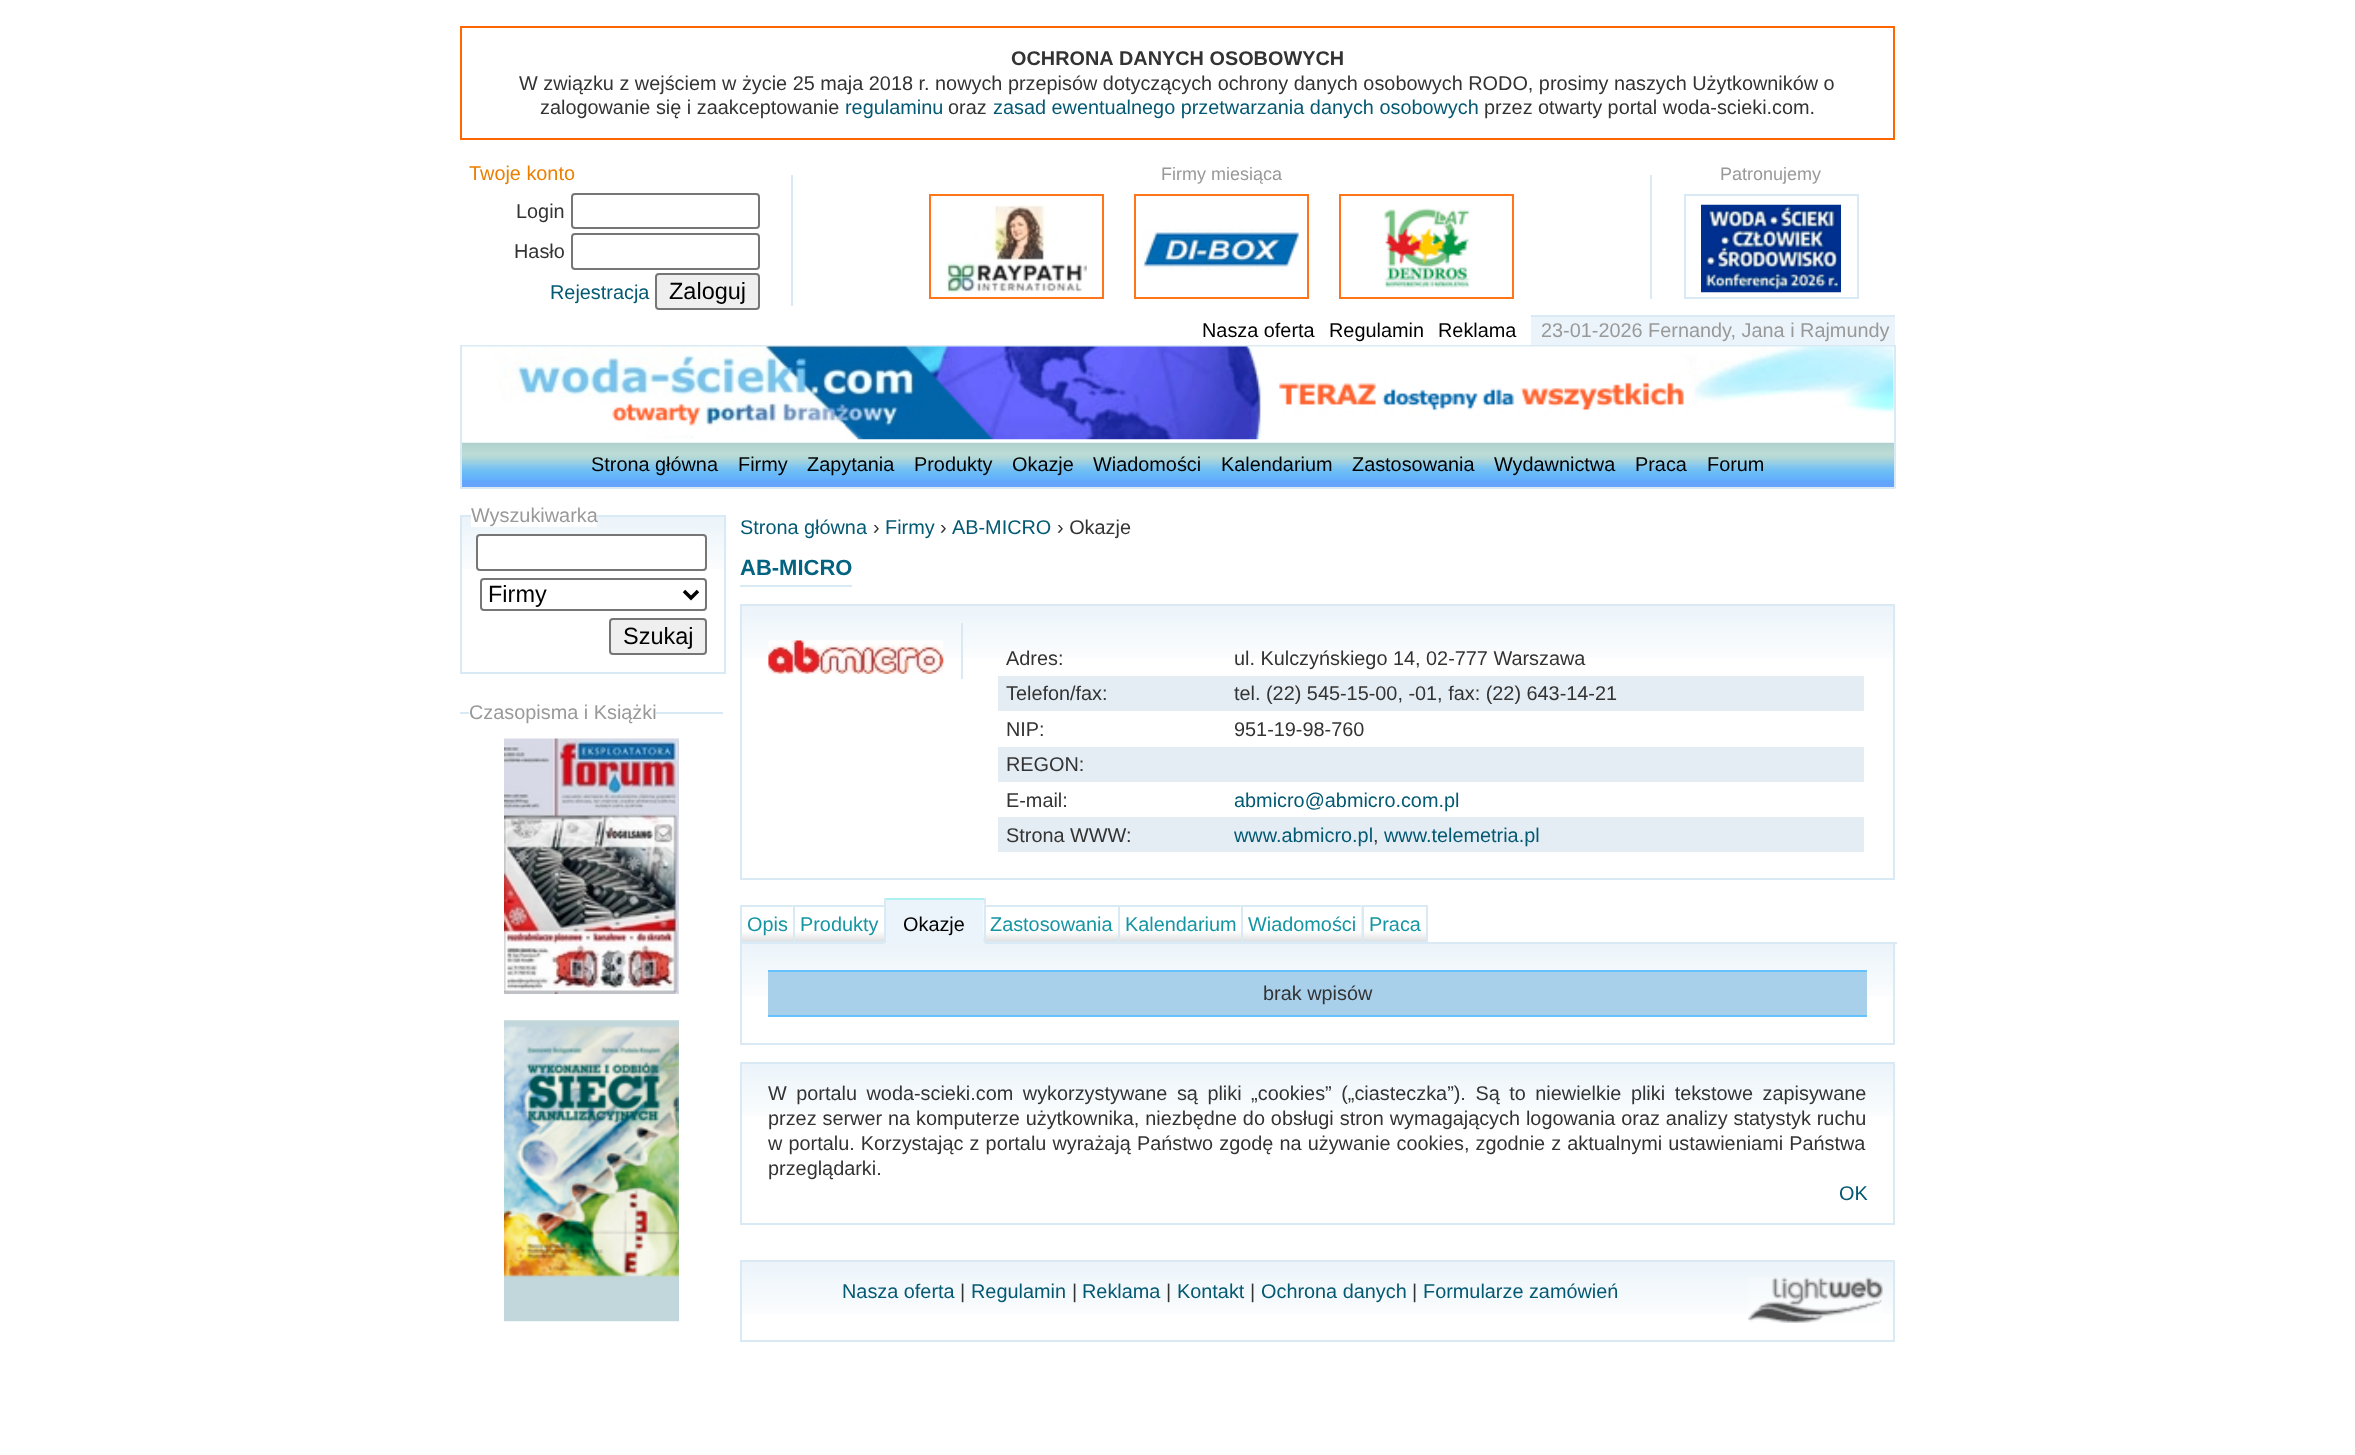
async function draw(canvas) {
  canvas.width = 2355;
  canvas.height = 1455;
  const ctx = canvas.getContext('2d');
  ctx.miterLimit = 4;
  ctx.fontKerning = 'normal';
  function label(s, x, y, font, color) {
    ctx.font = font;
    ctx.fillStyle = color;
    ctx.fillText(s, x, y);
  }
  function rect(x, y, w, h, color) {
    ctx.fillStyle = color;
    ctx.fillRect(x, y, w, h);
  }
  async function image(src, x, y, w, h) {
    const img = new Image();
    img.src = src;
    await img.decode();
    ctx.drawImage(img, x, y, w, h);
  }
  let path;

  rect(0, 0, 2355, 1455, '#fff');
  ctx.strokeStyle = '#f60';
  ctx.lineWidth = 2;
  ctx.strokeRect(461, 27, 1433, 112);
  label('OCHRONA', 1011, 65, 'bold 19.88px Liberation Sans', '#333');
  label('DANYCH OSOBOWYCH', 1119, 65, 'bold 19.88px Liberation Sans', '#333');
  label('W związku z wejściem w życie 25 maja 2018 r. nowych przepisów dotyczących ochrony danych osobowych RODO, prosimy naszych Użytkowników o', 519, 90, '19.88px Liberation Sans', '#333');
  label('zalogowanie się i zaakceptowanie', 540, 114, '19.88px Liberation Sans', '#333');
  label('regulaminu', 845, 114, '19.88px Liberation Sans', '#035872');
  label('oraz', 948, 114, '19.88px Liberation Sans', '#333');
  label('zasad ewentualnego przetwarzania danych osobowych', 993, 114, '19.88px Liberation Sans', '#035872');
  label('przez otwarty portal woda-scieki.com.', 1484, 114, '19.88px Liberation Sans', '#333');
  rect(791, 175, 2, 131, '#d9eaf5');
  label('Twoje konto', 469, 180, '19.88px Liberation Sans', '#eb7f00');
  label('Login', 516, 218, '19.88px Liberation Sans', '#333');
  ctx.beginPath();
  ctx.roundRect(572, 194, 187, 34, 3);
  ctx.strokeStyle = '#767676';
  ctx.stroke();
  label('Hasło', 514, 258, '19.88px Liberation Sans', '#333');
  ctx.beginPath();
  ctx.roundRect(572, 234, 187, 35, 3);
  ctx.stroke();
  label('Rejestracja', 550, 299, '19.88px Liberation Sans', '#035872');
  ctx.fillStyle = '#efefef';
  ctx.beginPath();
  ctx.roundRect(656, 274, 103, 35, 3);
  ctx.fill();
  ctx.stroke();
  label('Zaloguj', 669, 299, '23.5px Liberation Sans', '#000');
  rect(1650, 175, 2, 124, '#d9eaf5');
  label('Firmy miesiąca', 1161, 180, '18px Liberation Sans', '#999');
  ctx.strokeStyle = '#ff7519';
  ctx.strokeRect(930, 195, 173, 103);
  await image('assets/img1.png', 946, 205, 141, 88);
  ctx.strokeRect(1135, 195, 173, 103);
  await image('assets/img2.png', 1143, 229, 157, 41);
  ctx.strokeRect(1340, 195, 173, 103);
  await image('assets/img3.png', 1384, 208, 87, 80);
  label('Patronujemy', 1720, 180, '18px Liberation Sans', '#999');
  ctx.strokeStyle = '#d9eaf5';
  ctx.strokeRect(1685, 195, 173, 103);
  await image('assets/img4.png', 1701, 204, 140, 89);
  label('Nasza oferta', 1202, 337, '19.88px Liberation Sans', '#000');
  label('Regulamin', 1329, 337, '19.88px Liberation Sans', '#000');
  label('Reklama', 1438, 337, '19.88px Liberation Sans', '#000');
  rect(1531, 317, 364, 28, '#ebf4fa');
  label('23-01-2026 Fernandy, Jana i Rajmundy', 1541, 337, '19.88px Liberation Sans', '#999');
  rect(1531, 315, 364, 2, '#d9eaf5');
  rect(460, 345, 1435, 2, '#d9eaf5');
  await image('assets/img6.png', 462, 442, 1434, 47);
  rect(1894, 345, 2, 98, '#d9eaf5');
  rect(460, 345, 2, 98, '#d9eaf5');
  await image('assets/img5.png', 462, 346, 1432, 94);
  rect(1894, 443, 2, 45, '#d9eaf5');
  rect(460, 487, 1435, 2, '#d9eaf5');
  rect(460, 443, 2, 45, '#d9eaf5');
  label('Strona główna', 591, 471, '19.88px Liberation Sans', '#000');
  label('Firmy', 738, 471, '19.88px Liberation Sans', '#000');
  label('Zapytania', 807, 471, '19.88px Liberation Sans', '#000');
  label('Produkty', 914, 471, '19.88px Liberation Sans', '#000');
  label('Okazje', 1012, 471, '19.88px Liberation Sans', '#000');
  label('Wiadomości', 1093, 471, '19.88px Liberation Sans', '#000');
  label('Kalendarium', 1221, 471, '19.88px Liberation Sans', '#000');
  label('Zastosowania', 1352, 471, '19.88px Liberation Sans', '#000');
  label('Wydawnictwa', 1494, 471, '19.88px Liberation Sans', '#000');
  label('Praca', 1635, 471, '19.88px Liberation Sans', '#000');
  label('Forum', 1707, 471, '19.88px Liberation Sans', '#000');
  await image('assets/img7.png', 462, 516, 265, 53);
  ctx.strokeRect(461, 516, 264, 157);
  rect(471, 515, 126, 12, '#fff');
  label('Wyszukiwarka', 471, 522, '19.88px Liberation Sans', '#999');
  ctx.fillStyle = '#fff';
  ctx.beginPath();
  ctx.roundRect(477, 535, 229, 35, 3);
  ctx.fill();
  ctx.strokeStyle = '#767676';
  ctx.stroke();
  ctx.beginPath();
  ctx.roundRect(481, 579, 225, 31, 3);
  ctx.stroke();
  path = new Path2D('M684 591L691 598L698 591');
  ctx.strokeStyle = '#000';
  ctx.lineWidth = 3.5;
  ctx.stroke(path);
  label('Firmy', 488, 602, '23.5px Liberation Sans', '#000');
  ctx.fillStyle = '#efefef';
  ctx.beginPath();
  ctx.roundRect(610, 619, 96, 35, 3);
  ctx.fill();
  ctx.strokeStyle = '#767676';
  ctx.lineWidth = 2;
  ctx.stroke();
  label('Szukaj', 623, 644, '23.5px Liberation Sans', '#000');
  rect(460, 712, 263, 2, '#d9eaf5');
  rect(469, 712, 187, 2, '#fff');
  label('Czasopisma i Książki', 469, 719, '19.88px Liberation Sans', '#999');
  await image('assets/img8.png', 504, 738, 175, 256);
  await image('assets/img9.png', 504, 1020, 175, 302);
  label('Strona główna', 740, 534, '19.88px Liberation Sans', '#035872');
  label('›', 873, 534, '19.88px Liberation Sans', '#333');
  label('Firmy', 885, 534, '19.88px Liberation Sans', '#035872');
  label('›', 940, 534, '19.88px Liberation Sans', '#333');
  label('AB-MICRO', 952, 534, '19.88px Liberation Sans', '#035872');
  label('› Okazje', 1057, 534, '19.88px Liberation Sans', '#333');
  rect(740, 585, 112, 2, '#d9eaf5');
  label('AB-MICRO', 740, 575, 'bold 22px Liberation Sans', '#046380');
  await image('assets/img10.png', 742, 605, 1154, 53);
  ctx.strokeStyle = '#d9eaf5';
  ctx.strokeRect(741, 605, 1153, 274);
  rect(961, 623, 2, 56, '#d9eaf5');
  await image('assets/img11.png', 768, 640, 176, 34);
  label('Adres:', 1006, 665, '19.88px Liberation Sans', '#333');
  label('ul. Kulczyńskiego 14, 02-777 Warszawa', 1234, 665, '19.88px Liberation Sans', '#333');
  rect(998, 676, 866, 35, '#e4edf3');
  label('Telefon/fax:', 1006, 700, '19.88px Liberation Sans', '#333');
  label('tel. (22) 545-15-00, -01, fax: (22) 643-14-21', 1234, 700, '19.88px Liberation Sans', '#333');
  label('NIP:', 1006, 736, '19.88px Liberation Sans', '#333');
  label('951-19-98-760', 1234, 736, '19.88px Liberation Sans', '#333');
  rect(998, 747, 866, 35, '#e4edf3');
  label('REGON:', 1006, 771, '19.88px Liberation Sans', '#333');
  label('E-mail:', 1006, 807, '19.88px Liberation Sans', '#333');
  label('abmicro@abmicro.com.pl', 1234, 807, '19.88px Liberation Sans', '#035872');
  rect(998, 817, 866, 35, '#e4edf3');
  label('Strona WWW:', 1006, 842, '19.88px Liberation Sans', '#333');
  label('www.abmicro.pl', 1234, 842, '19.88px Liberation Sans', '#035872');
  label(',', 1373, 842, '19.88px Liberation Sans', '#333');
  label('www.telemetria.pl', 1384, 842, '19.88px Liberation Sans', '#035872');
  rect(1895, 942, 2, 2, '#d9eaf5');
  await image('assets/img12.png', 742, 932, 51, 9);
  await image('assets/img18.png', 742, 944, 1154, 52);
  ctx.strokeRect(741, 943, 1153, 101);
  ctx.strokeRect(741, 906, 53, 36);
  label('Opis', 747, 931, '19.88px Liberation Sans', '#1695a3');
  await image('assets/img13.png', 792, 905, 92, 37);
  ctx.strokeRect(794, 906, 91, 36);
  label('Produkty', 800, 931, '19.88px Liberation Sans', '#1695a3');
  rect(886, 900, 98, 42, '#ebf4fa');
  rect(884, 898, 101, 2, '#acf0f2');
  rect(984, 898, 2, 7, '#d9eaf5');
  rect(884, 942, 101, 2, '#ebf4fa');
  rect(884, 898, 2, 45, '#d9eaf5');
  label('Okazje', 903, 931, '19.88px Liberation Sans', '#000');
  await image('assets/img14.png', 983, 904, 137, 38);
  ctx.strokeRect(985, 906, 134, 36);
  label('Zastosowania', 990, 931, '19.88px Liberation Sans', '#1695a3');
  await image('assets/img15.png', 1120, 907, 121, 34);
  ctx.strokeRect(1119, 906, 123, 36);
  label('Kalendarium', 1125, 931, '19.88px Liberation Sans', '#1695a3');
  await image('assets/img16.png', 1240, 905, 121, 37);
  ctx.strokeRect(1242, 906, 120, 36);
  label('Wiadomości', 1248, 931, '19.88px Liberation Sans', '#1695a3');
  await image('assets/img17.png', 1361, 905, 65, 37);
  ctx.strokeRect(1363, 906, 64, 36);
  label('Praca', 1369, 931, '19.88px Liberation Sans', '#1695a3');
  rect(768, 972, 1099, 43, '#a8d0eb');
  rect(768, 970, 1099, 2, '#66c2ff');
  rect(768, 1015, 1099, 2, '#66c2ff');
  label('brak wpisów', 1263, 1000, '19.88px Liberation Sans', '#333');
  await image('assets/img19.png', 742, 1064, 1154, 52);
  ctx.strokeRect(741, 1063, 1153, 161);
  ctx.wordSpacing = '4px';
  label('W portalu woda-scieki.com wykorzystywane są pliki „cookies” („ciasteczka”). Są to niewielkie pliki tekstowe zapisywane', 768, 1100, '19.88px Liberation Sans', '#333');
  ctx.wordSpacing = '0.4px';
  label('przez serwer na komputerze użytkownika, niezbędne do obsługi stron wymagających logowania oraz analizy statystyk ruchu', 768, 1125, '19.88px Liberation Sans', '#333');
  ctx.wordSpacing = '0.6px';
  label('w portalu. Korzystając z portalu wyrażają Państwo zgodę na używanie cookies, zgodnie z aktualnymi ustawieniami Państwa', 768, 1150, '19.88px Liberation Sans', '#333');
  ctx.wordSpacing = '0px';
  label('przeglądarki.', 768, 1175, '19.88px Liberation Sans', '#333');
  label('OK', 1839, 1200, '19.88px Liberation Sans', '#035872');
  await image('assets/img20.png', 742, 1261, 1154, 53);
  ctx.strokeRect(741, 1261, 1153, 80);
  label('Nasza oferta', 842, 1298, '19.88px Liberation Sans', '#035872');
  label('|', 960, 1298, '19.88px Liberation Sans', '#333');
  label('Regulamin', 971, 1298, '19.88px Liberation Sans', '#035872');
  label('|', 1072, 1298, '19.88px Liberation Sans', '#333');
  label('Reklama', 1082, 1298, '19.88px Liberation Sans', '#035872');
  label('|', 1166, 1298, '19.88px Liberation Sans', '#333');
  label('Kontakt', 1177, 1298, '19.88px Liberation Sans', '#035872');
  label('|', 1250, 1298, '19.88px Liberation Sans', '#333');
  label('Ochrona danych', 1261, 1298, '19.88px Liberation Sans', '#035872');
  label('|', 1412, 1298, '19.88px Liberation Sans', '#333');
  label('Formularze zamówień', 1423, 1298, '19.88px Liberation Sans', '#035872');
  await image('assets/img21.png', 1748, 1277, 135, 46);
}

draw(document.querySelector('canvas'));
